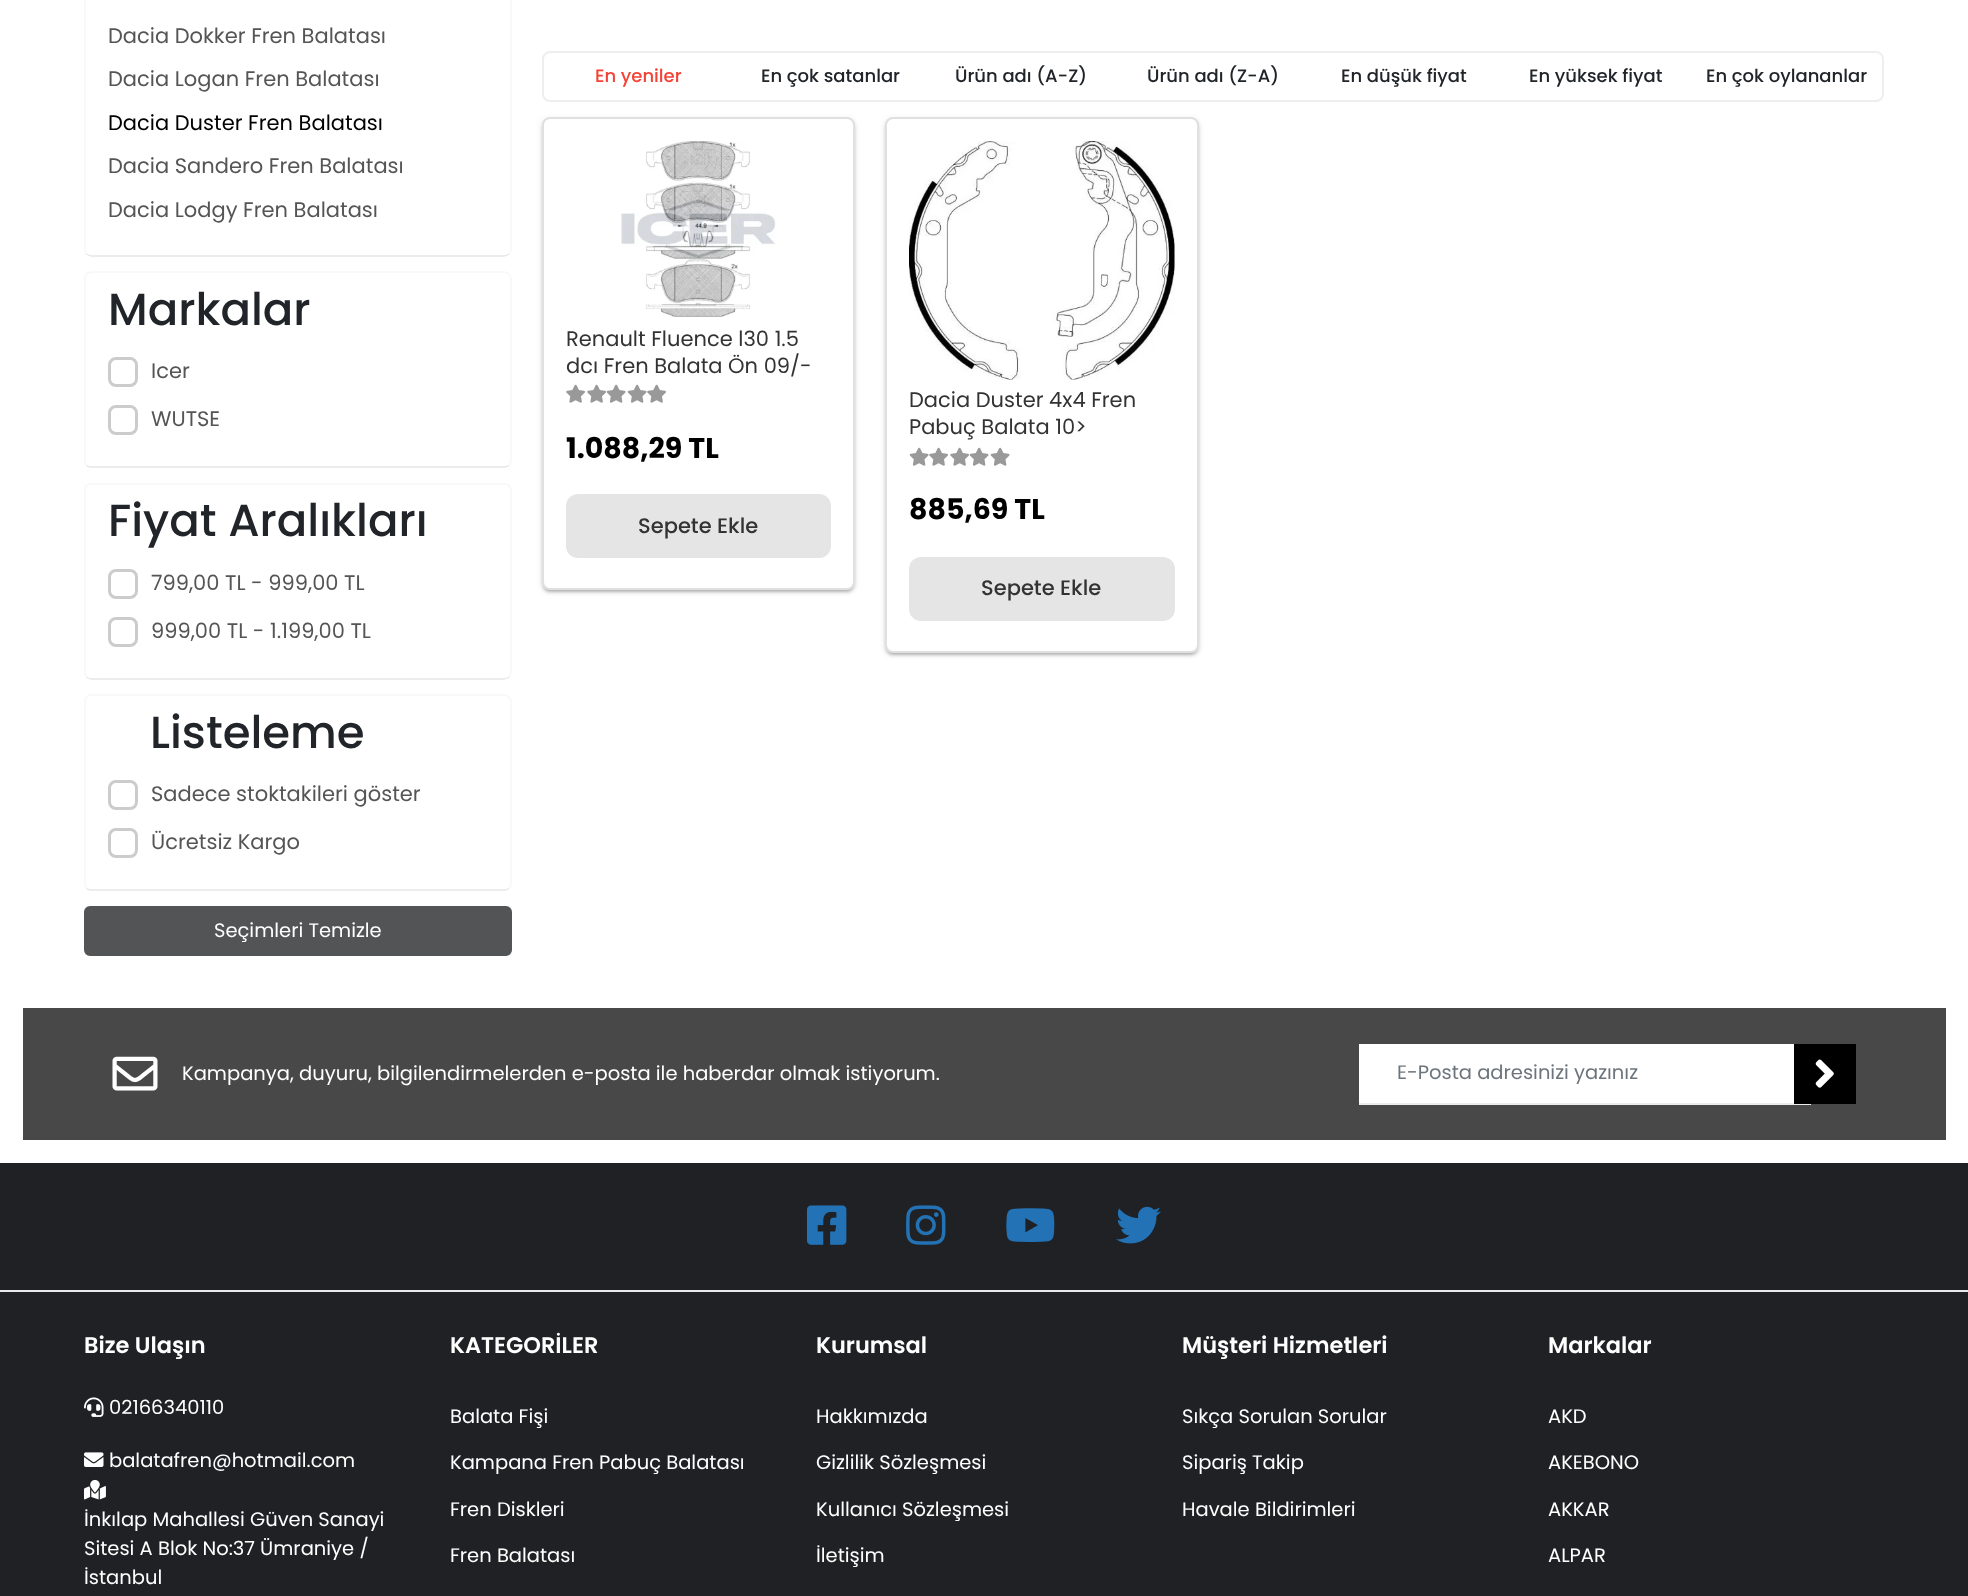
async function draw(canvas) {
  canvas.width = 1968;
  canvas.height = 1596;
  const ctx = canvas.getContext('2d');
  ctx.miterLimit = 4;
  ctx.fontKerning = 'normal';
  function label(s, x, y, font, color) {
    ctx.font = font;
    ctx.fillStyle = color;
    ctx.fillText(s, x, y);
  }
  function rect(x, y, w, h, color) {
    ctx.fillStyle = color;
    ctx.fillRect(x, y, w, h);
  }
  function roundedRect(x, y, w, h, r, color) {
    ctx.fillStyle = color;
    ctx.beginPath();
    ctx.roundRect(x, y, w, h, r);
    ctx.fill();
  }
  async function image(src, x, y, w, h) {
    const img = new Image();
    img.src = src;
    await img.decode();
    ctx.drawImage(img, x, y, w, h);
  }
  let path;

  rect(0, 0, 1968, 1596, '#fff');
  path = new Path2D('M509 254C507.5 255 506 256 504 256H91.5C89.5 256 88 255 86.5 254');
  ctx.strokeStyle = '#e6e6e6';
  ctx.lineWidth = 1.5;
  ctx.stroke(path);
  path = new Path2D('M86.5 254C85.5 252.5 85 251 85 249V-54C85-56 85.5-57.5 86.5-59C88-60 89.5-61 91.5-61H504C506-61 507.5-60 509-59C510-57.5 511-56 511-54V249C511 251 510 252.5 509 254');
  ctx.strokeStyle = '#f7f7f7';
  ctx.stroke(path);
  label('Dacia Dokker Fren Balatası', 108, 43, '21px Poppins', '#555');
  label('Dacia Logan Fren Balatası', 108, 86, '21px Poppins', '#555');
  label('Dacia Duster Fren Balatası', 108, 130, '21px Poppins', '#000');
  label('Dacia Sandero Fren Balatası', 108, 173, '21px Poppins', '#555');
  label('Dacia Lodgy Fren Balatası', 108, 217, '21px Poppins', '#555');
  path = new Path2D('M509 465.5C507.5 466.5 506 467 504 467H91.5C89.5 467 88 466.5 86.5 465.5');
  ctx.strokeStyle = '#e6e6e6';
  ctx.stroke(path);
  path = new Path2D('M86.5 465.5C85.5 464 85 462.5 85 460.5V279C85 277 85.5 275.5 86.5 274C88 273 89.5 272 91.5 272H504C506 272 507.5 273 509 274C510 275.5 511 277 511 279V460.5C511 462.5 510 464 509 465.5');
  ctx.strokeStyle = '#f7f7f7';
  ctx.stroke(path);
  label('Markalar', 108, 325, '500 45px Poppins', '#212529');
  ctx.beginPath();
  ctx.roundRect(109.5, 358.5, 27, 27, 6.5);
  ctx.strokeStyle = '#ccc';
  ctx.lineWidth = 3;
  ctx.stroke();
  label('Icer', 151, 378, '21px Poppins', '#555');
  ctx.beginPath();
  ctx.roundRect(109.5, 406.5, 27, 27, 6.5);
  ctx.stroke();
  label('WUTSE', 151, 426, '21px Poppins', '#555');
  path = new Path2D('M509 677C507.5 678 506 679 504 679H91.5C89.5 679 88 678 86.5 677');
  ctx.strokeStyle = '#e6e6e6';
  ctx.lineWidth = 1.5;
  ctx.stroke(path);
  path = new Path2D('M86.5 677C85.5 675.5 85 674 85 672V490.5C85 488.5 85.5 487 86.5 485.5C88 484.5 89.5 484 91.5 484H504C506 484 507.5 484.5 509 485.5C510 487 511 488.5 511 490.5V672C511 674 510 675.5 509 677');
  ctx.strokeStyle = '#f7f7f7';
  ctx.stroke(path);
  label('Fiyat Aralıkları', 108, 536, '500 45px Poppins', '#212529');
  ctx.beginPath();
  ctx.roundRect(109.5, 570.5, 27, 27, 6.5);
  ctx.strokeStyle = '#ccc';
  ctx.lineWidth = 3;
  ctx.stroke();
  label('799,00 TL - 999,00 TL', 151, 590, '21px Poppins', '#555');
  ctx.beginPath();
  ctx.roundRect(109.5, 618.5, 27, 27, 6.5);
  ctx.stroke();
  label('999,00 TL - 1.199,00 TL', 151, 638, '21px Poppins', '#555');
  path = new Path2D('M509 888.5C507.5 889.5 506 890 504 890H91.5C89.5 890 88 889.5 86.5 888.5');
  ctx.strokeStyle = '#e6e6e6';
  ctx.lineWidth = 1.5;
  ctx.stroke(path);
  path = new Path2D('M86.5 888.5C85.5 887 85 885.5 85 883.5V702C85 700 85.5 698.5 86.5 697C88 696 89.5 695 91.5 695H504C506 695 507.5 696 509 697C510 698.5 511 700 511 702V883.5C511 885.5 510 887 509 888.5');
  ctx.strokeStyle = '#f7f7f7';
  ctx.stroke(path);
  label('Listeleme', 150, 748, '500 45px Poppins', '#212529');
  ctx.beginPath();
  ctx.roundRect(109.5, 781.5, 27, 27, 6.5);
  ctx.strokeStyle = '#ccc';
  ctx.lineWidth = 3;
  ctx.stroke();
  label('Sadece stoktakileri göster', 151, 801, '21px Poppins', '#555');
  ctx.beginPath();
  ctx.roundRect(109.5, 829.5, 27, 27, 6.5);
  ctx.stroke();
  label('Ücretsiz Kargo', 151, 849, '21px Poppins', '#555');
  ctx.fillStyle = '#535456';
  ctx.beginPath();
  ctx.roundRect(85, 907, 426, 48, 5);
  ctx.fill();
  ctx.strokeStyle = '#535456';
  ctx.lineWidth = 2;
  ctx.stroke();
  label('Seçimleri Temizle', 214, 937, '19.5px Poppins', '#fff');
  ctx.beginPath();
  ctx.roundRect(543, 52, 1340, 49, 7);
  ctx.strokeStyle = '#eee';
  ctx.stroke();
  label('En yeniler', 595, 82, '500 18px Poppins', '#f44336');
  label('En çok satanlar', 761, 82, '500 18px Poppins', '#212529');
  label('Ürün adı (A-Z)', 955, 82, '500 18px Poppins', '#212529');
  label('Ürün adı (Z-A)', 1147, 82, '500 18px Poppins', '#212529');
  label('En düşük fiyat', 1341, 82, '500 18px Poppins', '#212529');
  label('En yüksek fiyat', 1529, 82, '500 18px Poppins', '#212529');
  label('En çok oylananlar', 1706, 82, '500 18px Poppins', '#212529');
  ctx.fillStyle = '#20212433';
  ctx.filter = 'blur(1px)';
  ctx.beginPath();
  ctx.roundRect(545, 125, 307, 466, 5);
  ctx.fill();
  ctx.filter = 'none';
  ctx.fillStyle = '#20212424';
  ctx.filter = 'blur(1.5px)';
  ctx.beginPath();
  ctx.roundRect(542, 120, 313, 473, 8);
  ctx.fill();
  ctx.filter = 'none';
  ctx.fillStyle = '#2021241f';
  ctx.filter = 'blur(3px)';
  ctx.beginPath();
  ctx.roundRect(542, 119, 313, 472, 8);
  ctx.fill();
  ctx.filter = 'none';
  ctx.fillStyle = '#fff';
  ctx.beginPath();
  ctx.roundRect(543, 118, 311, 471, 7);
  ctx.fill();
  ctx.strokeStyle = '#e0e0e0';
  ctx.stroke();
  await image('assets/img1.png', 621, 141, 155, 176);
  label('Renault Fluence l30 1.5', 566, 346, '21px Poppins', '#333');
  label('dcı Fren Balata Ön 09/-', 566, 373, '21px Poppins', '#333');
  await image('assets/img2.png', 566, 384, 19, 19);
  await image('assets/img2.png', 587, 384, 19, 19);
  await image('assets/img3.png', 606, 384, 20, 19);
  await image('assets/img3.png', 627, 384, 20, 19);
  await image('assets/img2.png', 647, 384, 19, 19);
  label('1.088,29 TL', 566, 458, 'bold 28.5px Poppins', '#000');
  roundedRect(566, 494, 265, 64, 12, '#e5e5e5');
  label('Sepete Ekle', 638, 533, '500 21px Poppins', '#333');
  ctx.fillStyle = '#20212433';
  ctx.filter = 'blur(1px)';
  ctx.beginPath();
  ctx.roundRect(888, 125, 308, 529, 5);
  ctx.fill();
  ctx.filter = 'none';
  ctx.fillStyle = '#20212424';
  ctx.filter = 'blur(1.5px)';
  ctx.beginPath();
  ctx.roundRect(885, 120, 314, 536, 8);
  ctx.fill();
  ctx.filter = 'none';
  ctx.fillStyle = '#2021241f';
  ctx.filter = 'blur(3px)';
  ctx.beginPath();
  ctx.roundRect(885, 119, 314, 535, 8);
  ctx.fill();
  ctx.filter = 'none';
  ctx.fillStyle = '#fff';
  ctx.beginPath();
  ctx.roundRect(886, 118, 312, 534, 7);
  ctx.fill();
  ctx.stroke();
  await image('assets/img4.png', 909, 141, 266, 239);
  label('Dacia Duster 4x4 Fren', 909, 407, '21px Poppins', '#333');
  label('Pabuç Balata 10>', 909, 434, '21px Poppins', '#333');
  await image('assets/img3.png', 909, 447, 20, 19);
  await image('assets/img2.png', 929, 447, 19, 19);
  await image('assets/img2.png', 950, 447, 19, 19);
  await image('assets/img3.png', 969, 447, 20, 19);
  await image('assets/img3.png', 990, 447, 20, 19);
  label('885,69 TL', 909, 519, 'bold 28.5px Poppins', '#000');
  roundedRect(909, 557, 266, 64, 12, '#e5e5e5');
  label('Sepete Ekle', 981, 595, '500 21px Poppins', '#333');
  rect(23, 1008, 1923, 132, '#484848');
  await image('assets/img5.png', 112, 1056, 46, 35);
  label('Kampanya, duyuru, bilgilendirmelerden e-posta ile haberdar olmak istiyorum.', 182, 1080, '19.5px Poppins', '#fff');
  rect(1359, 1044, 435, 59, '#fff');
  rect(1359, 1103, 452, 2, '#ebecee');
  label('E-Posta adresinizi yazınız', 1397, 1079, '19.5px Poppins', '#6c757d');
  rect(1794, 1044, 62, 60, '#000');
  await image('assets/img6.png', 1815, 1059, 19, 29);
  rect(0, 1163, 1968, 127, '#202124');
  await image('assets/img7.png', 807, 1205, 40, 40);
  await image('assets/img8.png', 906, 1205, 40, 40);
  await image('assets/img9.png', 1006, 1208, 49, 34);
  await image('assets/img10.png', 1116, 1206, 45, 38);
  rect(0, 1290, 1968, 2, '#eaeaea');
  rect(0, 1292, 1968, 304, '#202124');
  label('Bize Ulaşın', 84, 1353, '600 22.5px Poppins', '#fff');
  await image('assets/img11.png', 84, 1397, 20, 20);
  label('02166340110', 109, 1414, '19.5px Poppins', '#fff');
  await image('assets/img12.png', 84, 1452, 20, 15);
  label('balatafren@hotmail.com', 109, 1467, '19.5px Poppins', '#fff');
  await image('assets/img13.png', 84, 1479, 22, 21);
  label('İnkılap Mahallesi Güven Sanayi', 84, 1526, '19.5px Poppins', '#fff');
  label('Sitesi A Blok No:37 Ümraniye /', 84, 1555, '19.5px Poppins', '#fff');
  label('İstanbul', 84, 1584, '19.5px Poppins', '#fff');
  label('KATEGORİLER', 450, 1353, '600 22.5px Poppins', '#fff');
  label('Balata Fişi', 450, 1423, '19.5px Poppins', '#fff');
  label('Kampana Fren Pabuç Balatası', 450, 1469, '19.5px Poppins', '#fff');
  label('Fren Diskleri', 450, 1516, '19.5px Poppins', '#fff');
  label('Fren Balatası', 450, 1562, '19.5px Poppins', '#fff');
  label('Kurumsal', 816, 1353, '600 22.5px Poppins', '#fff');
  label('Hakkımızda', 816, 1423, '19.5px Poppins', '#fff');
  label('Gizlilik Sözleşmesi', 816, 1469, '19.5px Poppins', '#fff');
  label('Kullanıcı Sözleşmesi', 816, 1516, '19.5px Poppins', '#fff');
  label('İletişim', 816, 1562, '19.5px Poppins', '#fff');
  label('Müşteri Hizmetleri', 1182, 1353, '600 22.5px Poppins', '#fff');
  label('Sıkça Sorulan Sorular', 1182, 1423, '19.5px Poppins', '#fff');
  label('Sipariş Takip', 1182, 1469, '19.5px Poppins', '#fff');
  label('Havale Bildirimleri', 1182, 1516, '19.5px Poppins', '#fff');
  label('Markalar', 1548, 1353, '600 22.5px Poppins', '#fff');
  label('AKD', 1548, 1423, '19.5px Poppins', '#fff');
  label('AKEBONO', 1548, 1469, '19.5px Poppins', '#fff');
  label('AKKAR', 1548, 1516, '19.5px Poppins', '#fff');
  label('ALPAR', 1548, 1562, '19.5px Poppins', '#fff');
}

draw(document.querySelector('canvas'));
